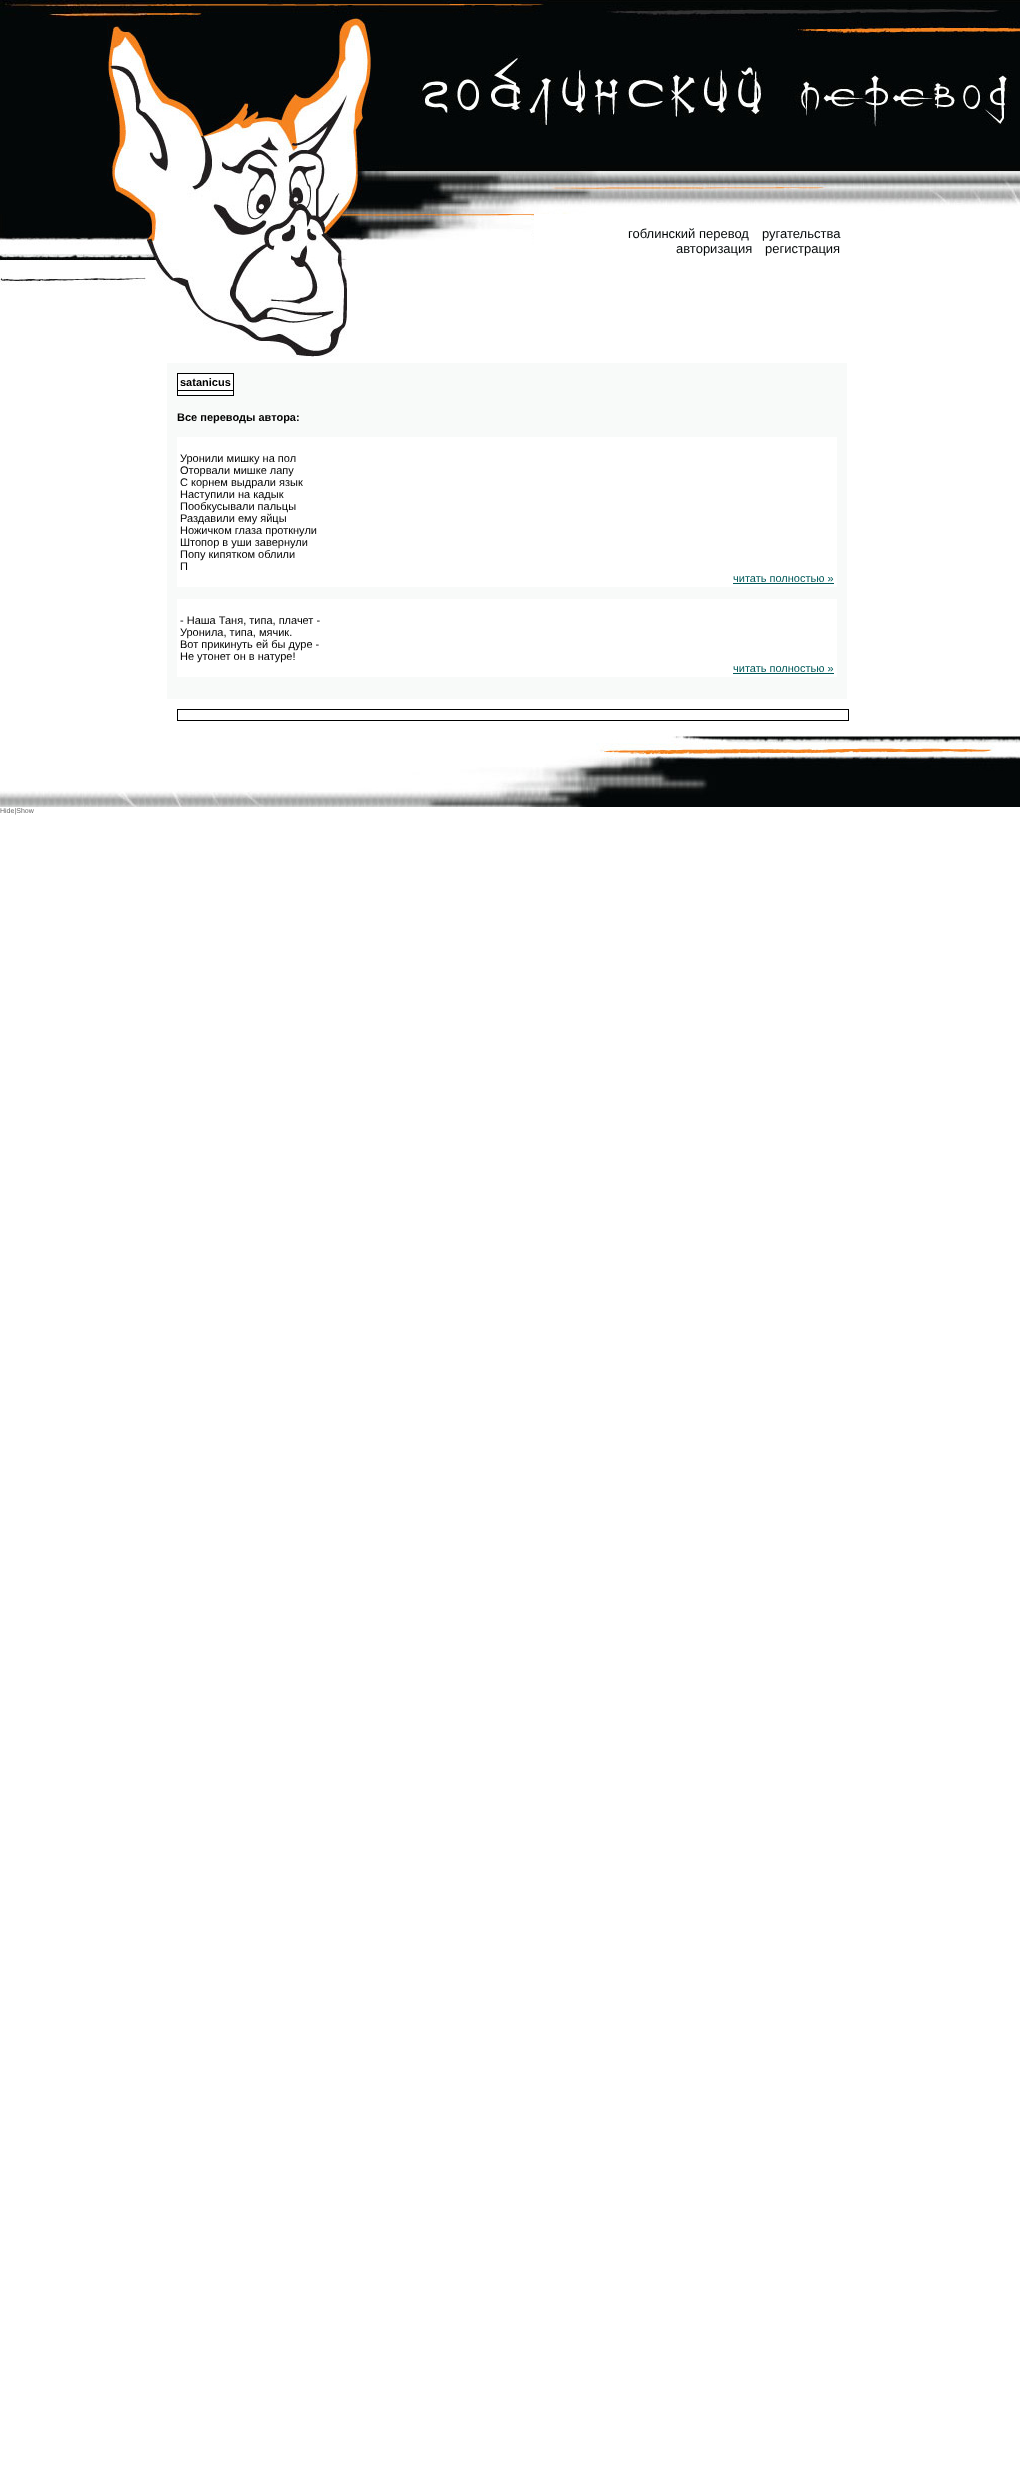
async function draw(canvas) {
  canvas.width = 1020;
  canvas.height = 2476;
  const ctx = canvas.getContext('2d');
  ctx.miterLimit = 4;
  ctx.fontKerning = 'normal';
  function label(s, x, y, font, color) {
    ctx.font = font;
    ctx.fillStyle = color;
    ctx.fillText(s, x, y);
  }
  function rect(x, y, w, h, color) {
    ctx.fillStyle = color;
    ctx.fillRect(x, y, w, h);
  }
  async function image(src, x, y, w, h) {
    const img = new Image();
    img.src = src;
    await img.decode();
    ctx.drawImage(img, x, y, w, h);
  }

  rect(0, 0, 1020, 2476, '#fff');
  rect(0, 0, 405, 214, '#030708');
  await image('assets/img1.png', 0, 0, 147, 19);
  await image('assets/img2.png', 104, 19, 43, 194);
  await image('assets/img3.png', 404, 3, 1, 211);
  await image('assets/img4.png', 147, 0, 257, 214);
  await image('assets/img5.png', 405, 40, 615, 174);
  await image('assets/img6.png', 405, 0, 615, 40);
  await image('assets/img7.png', 418, 53, 594, 74);
  await image('assets/img8.png', 581, 167, 5, 2);
  await image('assets/img9.png', 407, 170, 613, 44);
  await image('assets/img10.png', 0, 214, 147, 72);
  await image('assets/img11.png', 147, 214, 387, 143);
  label('гоблинский перевод', 628, 238, '13px Liberation Sans', '#030708');
  label('ругательства', 762, 238, '13px Liberation Sans', '#030708');
  label('авторизация', 676, 253, '13px Liberation Sans', '#030708');
  label('регистрация', 765, 253, '13px Liberation Sans', '#030708');
  rect(167, 363, 680, 336, '#f8faf9');
  rect(177, 373, 57, 23, '#000');
  rect(178, 374, 55, 16, '#fff');
  label('satanicus', 180, 386, 'bold 11px Liberation Sans', '#000');
  rect(178, 391, 55, 4, '#fff');
  label('Все переводы автора:', 177, 421, 'bold 11px Liberation Sans', '#000');
  rect(177, 437, 660, 150, '#fff');
  label('Уронили мишку на пол', 180, 462, '11px Liberation Sans', '#000');
  label('Оторвали мишке лапу', 180, 474, '11px Liberation Sans', '#000');
  label('С корнем выдрали язык', 180, 486, '11px Liberation Sans', '#000');
  label('Наступили на кадык', 180, 498, '11px Liberation Sans', '#000');
  label('Пообкусывали пальцы', 180, 510, '11px Liberation Sans', '#000');
  label('Раздавили ему яйцы', 180, 522, '11px Liberation Sans', '#000');
  label('Hожичком глаза проткнули', 180, 534, '11px Liberation Sans', '#000');
  label('Штопор в уши завернули', 180, 546, '11px Liberation Sans', '#000');
  label('Попу кипятком облили', 180, 558, '11px Liberation Sans', '#000');
  label('П', 180, 570, '11px Liberation Sans', '#000');
  label('читать полностью »', 733, 582, '11px Liberation Sans', '#005959');
  rect(733, 583, 101, 1, '#005959');
  rect(177, 599, 660, 78, '#fff');
  label('- Наша Таня, типа, плачет -', 180, 624, '11px Liberation Sans', '#000');
  label('Уронила, типа, мячик.', 180, 636, '11px Liberation Sans', '#000');
  label('Вот прикинуть ей бы дуре -', 180, 648, '11px Liberation Sans', '#000');
  label('Не утонет он в натуре!', 180, 660, '11px Liberation Sans', '#000');
  label('читать полностью »', 733, 672, '11px Liberation Sans', '#005959');
  rect(733, 673, 101, 1, '#005959');
  ctx.strokeStyle = '#000';
  ctx.strokeRect(177.5, 709.5, 671, 11);
  await image('assets/img12.png', 0, 791, 147, 16);
  await image('assets/img13.png', 147, 791, 161, 16);
  await image('assets/img14.png', 308, 792, 49, 15);
  await image('assets/img15.png', 357, 735, 510, 72);
  await image('assets/img16.png', 867, 733, 153, 74);
  label('Hide|Show', 0, 813, '7px Liberation Sans', '#636363');
}

draw(document.querySelector('canvas'));
